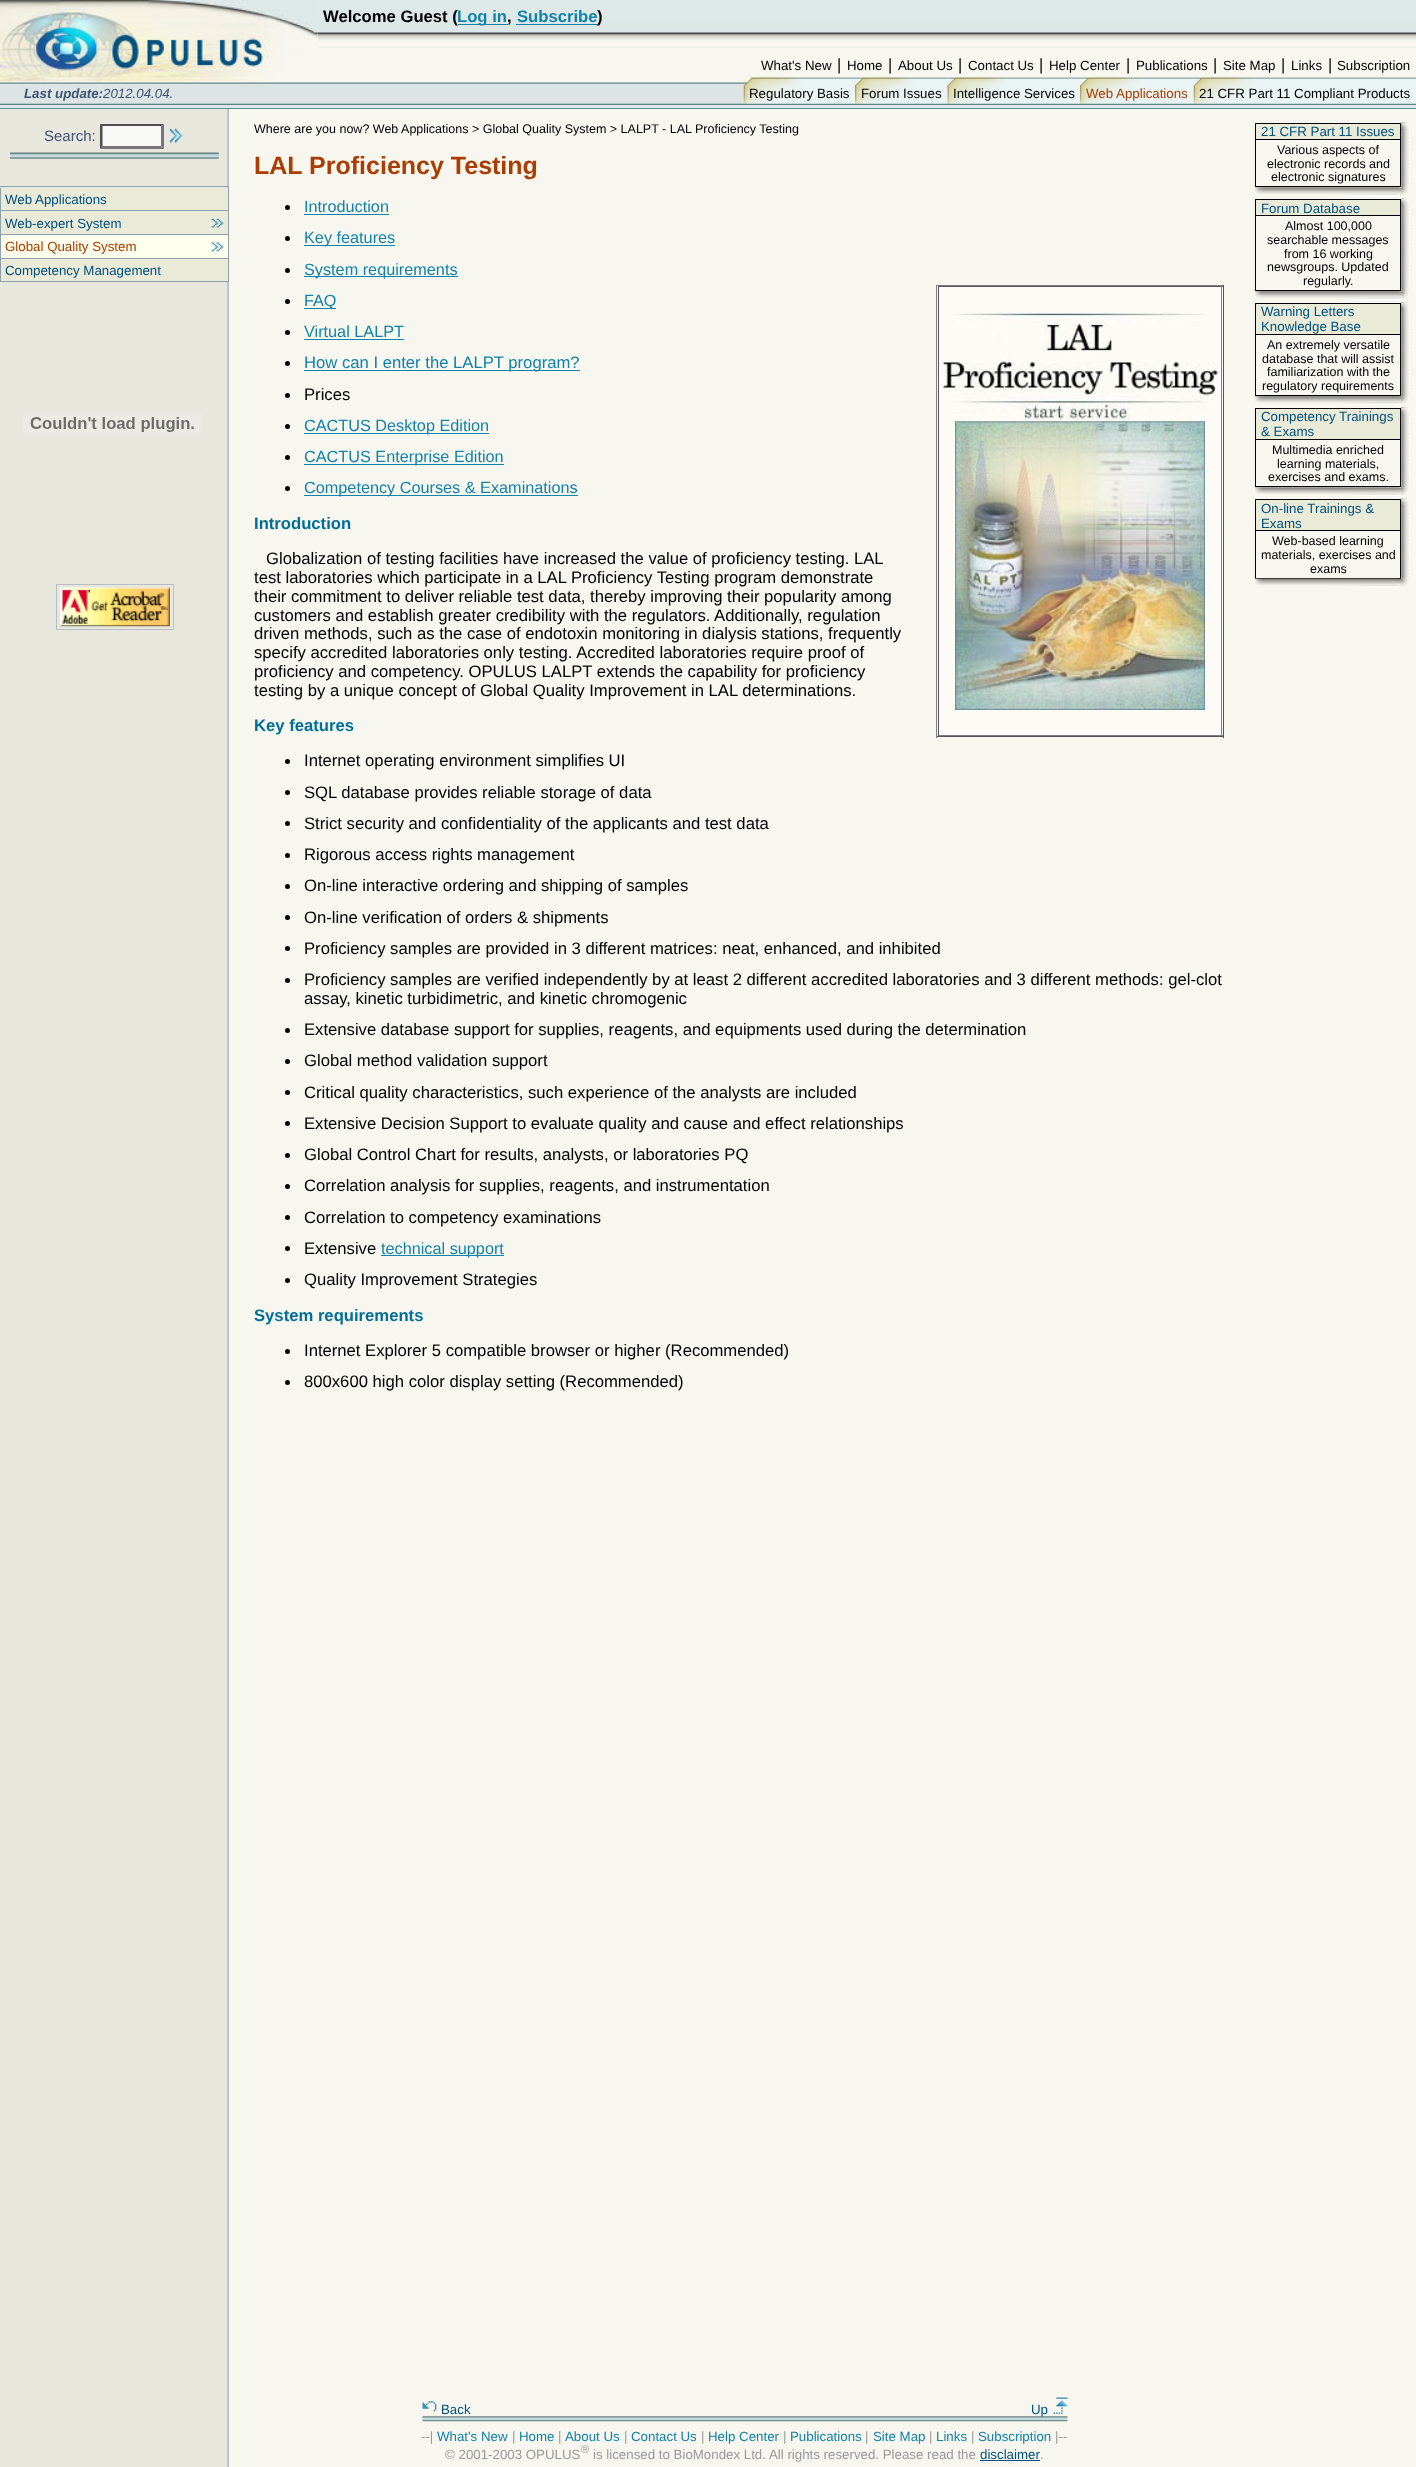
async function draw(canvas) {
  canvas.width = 1416;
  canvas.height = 2467;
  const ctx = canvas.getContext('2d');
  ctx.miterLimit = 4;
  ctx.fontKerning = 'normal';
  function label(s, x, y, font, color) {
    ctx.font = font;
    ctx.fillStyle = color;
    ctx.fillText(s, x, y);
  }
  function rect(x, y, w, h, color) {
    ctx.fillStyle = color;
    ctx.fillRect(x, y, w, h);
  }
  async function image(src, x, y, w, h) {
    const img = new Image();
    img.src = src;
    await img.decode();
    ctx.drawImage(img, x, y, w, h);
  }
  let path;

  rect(0, 0, 1416, 2467, '#f7f7ef');
  await image('assets/img1.png', 0, 77, 229, 2390);
  rect(318, 47, 1098, 1, '#dee8e7');
  await image('assets/img3.png', 317, 0, 1099, 48);
  await image('assets/img4.png', 0, 77, 1416, 28);
  await image('assets/img2.png', 0, 0, 318, 78);
  label('Welcome Guest (', 323, 22, 'bold 16.67px Liberation Sans', '#000');
  rect(458, 24, 50, 1, '#1182aa');
  label('Log in', 457, 22, 'bold 16.67px Liberation Sans', '#1182aa');
  label(',', 507, 22, 'bold 16.67px Liberation Sans', '#000');
  label('Subscribe', 517, 22, 'bold 16.67px Liberation Sans', '#1182aa');
  rect(516, 24, 82, 1, '#1182aa');
  label(')', 597, 22, 'bold 16.67px Liberation Sans', '#000');
  label('What\'s New', 761, 70, '13.3px Liberation Sans', '#000');
  label('|', 837, 70, '16.25px Liberation Sans', '#000');
  label('Home', 847, 70, '13.3px Liberation Sans', '#000');
  label('|', 888, 70, '16.25px Liberation Sans', '#000');
  label('About Us', 898, 70, '13.3px Liberation Sans', '#000');
  label('|', 958, 70, '16.25px Liberation Sans', '#000');
  label('Contact Us', 968, 70, '13.3px Liberation Sans', '#000');
  label('|', 1039, 70, '16.25px Liberation Sans', '#000');
  label('Help Center', 1049, 70, '13.3px Liberation Sans', '#000');
  label('|', 1126, 70, '16.25px Liberation Sans', '#000');
  label('Publications', 1136, 70, '13.3px Liberation Sans', '#000');
  label('|', 1213, 70, '16.25px Liberation Sans', '#000');
  label('Site Map', 1223, 70, '13.3px Liberation Sans', '#000');
  label('|', 1281, 70, '16.25px Liberation Sans', '#000');
  label('Links', 1291, 70, '13.3px Liberation Sans', '#000');
  label('|', 1328, 70, '16.25px Liberation Sans', '#000');
  label('Subscription', 1337, 70, '13.3px Liberation Sans', '#000');
  await image('assets/img5.png', 0, 77, 270, 5);
  label('Last update:', 24, 98, 'italic bold 13.3px Liberation Sans', '#405371');
  label('2012.04.04.', 103, 98, 'italic 13.3px Liberation Sans', '#405371');
  await image('assets/img6.png', 743, 77, 112, 27);
  label('Regulatory Basis', 749, 98, '13.3px Liberation Sans', '#000');
  await image('assets/img7.png', 855, 77, 93, 27);
  label('Forum Issues', 861, 98, '13.3px Liberation Sans', '#000');
  await image('assets/img8.png', 947, 77, 133, 27);
  label('Intelligence Services', 953, 98, '13.3px Liberation Sans', '#000');
  await image('assets/img9.png', 1080, 77, 114, 27);
  label('Web Applications', 1086, 98, '13.3px Liberation Sans', '#ab3d00');
  await image('assets/img10.png', 1193, 77, 223, 27);
  label('21 CFR Part 11 Compliant Products', 1199, 98, '13.3px Liberation Sans', '#000');
  rect(0, 105, 1416, 3, '#dee7e7');
  rect(0, 108, 1416, 1, '#638c8c');
  label('Search:', 44, 141, '15px Liberation Sans', '#405371');
  rect(100, 124, 64, 25, '#f8f9f6');
  ctx.fillStyle = '#4f4f4f';
  path = new Path2D('M100 124H164L161 126H102Z');
  ctx.fill(path);
  ctx.fillStyle = '#767676';
  path = new Path2D('M164 124V149L161 146V126Z');
  ctx.fill(path);
  path = new Path2D('M164 149H100L102 146H161Z');
  ctx.fill(path);
  ctx.fillStyle = '#4f4f4f';
  path = new Path2D('M100 149V124L102.5 126V146Z');
  ctx.fill(path);
  await image('assets/img11.png', 169, 128, 14, 15);
  await image('assets/img12.png', 10, 152, 209, 7);
  rect(0, 186, 229, 1, '#8da1a8');
  rect(0, 188, 1, 94, '#8da1a8');
  rect(1, 188, 227, 22, '#eaead9');
  label('Web Applications', 5, 204, '13.3px Liberation Sans', '#01507d');
  rect(228, 188, 1, 22, '#8da1a8');
  rect(1, 210, 228, 1, '#8da1a8');
  rect(1, 211, 227, 23, '#eaead9');
  label('Web-expert System', 5, 228, '13.3px Liberation Sans', '#01507d');
  await image('assets/img13.png', 211, 218, 13, 10);
  rect(228, 211, 1, 23, '#8da1a8');
  rect(1, 234, 228, 1, '#8da1a8');
  rect(1, 235, 227, 23, '#ffe');
  label('Global Quality System', 5, 251, '13.3px Liberation Sans', '#ab3d00');
  await image('assets/img14.png', 211, 242, 13, 10);
  rect(228, 235, 1, 23, '#8da1a8');
  rect(1, 258, 228, 1, '#8da1a8');
  rect(1, 259, 227, 22, '#eaead9');
  label('Competency Management', 5, 275, '13.3px Liberation Sans', '#01507d');
  rect(228, 259, 1, 22, '#8da1a8');
  rect(1, 281, 228, 1, '#8da1a8');
  await image('assets/img15.png', 23, 413, 179, 22);
  ctx.strokeStyle = '#b5bdc6';
  ctx.strokeRect(56.5, 584.5, 117, 45);
  await image('assets/img16.png', 60, 587, 110, 40);
  label('Where are you now? Web Applications > Global Quality System > LALPT - LAL Proficiency Testing', 254, 133, '12.5px Liberation Sans', '#000');
  label('LAL Proficiency Testing', 254, 174, 'bold 25px Liberation Sans', '#ab3d00');
  ctx.fillStyle = '#000';
  ctx.beginPath();
  ctx.arc(287.5, 207.5, 2.5, 0, 2 * Math.PI);
  ctx.fill();
  label('Introduction', 304, 212, '16.25px Liberation Sans', '#1182aa');
  rect(304, 214, 85, 1, '#1182aa');
  ctx.fillStyle = '#000';
  ctx.beginPath();
  ctx.arc(287.5, 238.5, 2.5, 0, 2 * Math.PI);
  ctx.fill();
  rect(304, 245, 91, 1, '#1182aa');
  label('Key features', 304, 243, '16.25px Liberation Sans', '#1182aa');
  ctx.fillStyle = '#000';
  ctx.beginPath();
  ctx.arc(287.5, 270.5, 2.5, 0, 2 * Math.PI);
  ctx.fill();
  rect(304, 276, 154, 1, '#1182aa');
  label('System requirements', 304, 275, '16.25px Liberation Sans', '#1182aa');
  ctx.fillStyle = '#000';
  ctx.beginPath();
  ctx.arc(287.5, 301.5, 2.5, 0, 2 * Math.PI);
  ctx.fill();
  rect(304, 308, 32, 1, '#1182aa');
  label('FAQ', 304, 306, '16.25px Liberation Sans', '#1182aa');
  rect(936, 285, 288, 1, '#808080');
  rect(1223, 285, 1, 453, '#555');
  rect(936, 736, 288, 1, '#555');
  rect(936, 285, 1, 453, '#808080');
  rect(939, 287, 284, 448, '#fdfbf6');
  rect(938, 286, 285, 1, '#555');
  rect(1221, 286, 1, 450, '#808080');
  rect(938, 735, 285, 1, '#808080');
  rect(938, 286, 1, 450, '#555');
  await image('assets/img17.png', 941, 312, 278, 110);
  await image('assets/img18.png', 955, 421, 250, 289);
  ctx.fillStyle = '#000';
  ctx.beginPath();
  ctx.arc(287.5, 332.5, 2.5, 0, 2 * Math.PI);
  ctx.fill();
  label('Virtual LALPT', 304, 337, '16.25px Liberation Sans', '#1182aa');
  rect(304, 339, 100, 1, '#1182aa');
  ctx.fillStyle = '#000';
  ctx.beginPath();
  ctx.arc(287.5, 363.5, 2.5, 0, 2 * Math.PI);
  ctx.fill();
  rect(304, 370, 276, 1, '#1182aa');
  label('How can I enter the LALPT program?', 304, 368, '16.67px Liberation Sans', '#1182aa');
  ctx.fillStyle = '#000';
  ctx.beginPath();
  ctx.arc(287.5, 395.5, 2.5, 0, 2 * Math.PI);
  ctx.fill();
  label('Prices', 304, 400, '16.67px Liberation Sans', '#000');
  ctx.beginPath();
  ctx.arc(287.5, 426.5, 2.5, 0, 2 * Math.PI);
  ctx.fill();
  rect(304, 433, 185, 1, '#1182aa');
  label('CACTUS Desktop Edition', 304, 431, '16.25px Liberation Sans', '#1182aa');
  ctx.fillStyle = '#000';
  ctx.beginPath();
  ctx.arc(287.5, 457.5, 2.5, 0, 2 * Math.PI);
  ctx.fill();
  rect(304, 464, 200, 1, '#1182aa');
  label('CACTUS Enterprise Edition', 304, 462, '16.25px Liberation Sans', '#1182aa');
  ctx.fillStyle = '#000';
  ctx.beginPath();
  ctx.arc(287.5, 488.5, 2.5, 0, 2 * Math.PI);
  ctx.fill();
  rect(304, 495, 274, 1, '#1182aa');
  label('Competency Courses & Examinations', 304, 493, '16.25px Liberation Sans', '#1182aa');
  label('Introduction', 254, 529, 'bold 16.67px Liberation Sans', '#006f98');
  label('Globalization of testing facilities have increased the value of proficiency testing. LAL', 266, 564, '16.67px Liberation Sans', '#000');
  label('test laboratories which participate in a LAL Proficiency Testing program demonstrate', 254, 583, '16.67px Liberation Sans', '#000');
  label('their commitment to deliver reliable test data, thereby improving their popularity among', 254, 602, '16.67px Liberation Sans', '#000');
  label('customers and establish greater credibility with the regulators. Additionally, regulation', 254, 621, '16.67px Liberation Sans', '#000');
  label('driven methods, such as the case of endotoxin monitoring in dialysis stations, frequently', 254, 639, '16.67px Liberation Sans', '#000');
  label('specify accredited laboratories only testing. Accredited laboratories require proof of', 254, 658, '16.67px Liberation Sans', '#000');
  label('proficiency and competency. OPULUS LALPT extends the capability for proficiency', 254, 677, '16.67px Liberation Sans', '#000');
  label('testing by a unique concept of Global Quality Improvement in LAL determinations.', 254, 696, '16.67px Liberation Sans', '#000');
  label('Key features', 254, 731, 'bold 16.67px Liberation Sans', '#006f98');
  ctx.fillStyle = '#000';
  ctx.beginPath();
  ctx.arc(287.5, 761.5, 2.5, 0, 2 * Math.PI);
  ctx.fill();
  label('Internet operating environment simplifies UI', 304, 766, '16.67px Liberation Sans', '#000');
  ctx.beginPath();
  ctx.arc(287.5, 792.5, 2.5, 0, 2 * Math.PI);
  ctx.fill();
  label('SQL database provides reliable storage of data', 304, 798, '16.67px Liberation Sans', '#000');
  ctx.beginPath();
  ctx.arc(287.5, 823.5, 2.5, 0, 2 * Math.PI);
  ctx.fill();
  label('Strict security and confidentiality of the applicants and test data', 304, 829, '16.67px Liberation Sans', '#000');
  ctx.beginPath();
  ctx.arc(287.5, 855.5, 2.5, 0, 2 * Math.PI);
  ctx.fill();
  label('Rigorous access rights management', 304, 860, '16.67px Liberation Sans', '#000');
  ctx.beginPath();
  ctx.arc(287.5, 886.5, 2.5, 0, 2 * Math.PI);
  ctx.fill();
  label('On-line interactive ordering and shipping of samples', 304, 891, '16.67px Liberation Sans', '#000');
  ctx.beginPath();
  ctx.arc(287.5, 917.5, 2.5, 0, 2 * Math.PI);
  ctx.fill();
  label('On-line verification of orders & shipments', 304, 923, '16.67px Liberation Sans', '#000');
  ctx.beginPath();
  ctx.arc(287.5, 948.5, 2.5, 0, 2 * Math.PI);
  ctx.fill();
  label('Proficiency samples are provided in 3 different matrices: neat, enhanced, and inhibited', 304, 954, '16.67px Liberation Sans', '#000');
  ctx.beginPath();
  ctx.arc(287.5, 980.5, 2.5, 0, 2 * Math.PI);
  ctx.fill();
  label('Proficiency samples are verified independently by at least 2 different accredited laboratories and 3 different methods: gel-clot', 304, 985, '16.67px Liberation Sans', '#000');
  label('assay, kinetic turbidimetric, and kinetic chromogenic', 304, 1004, '16.67px Liberation Sans', '#000');
  ctx.beginPath();
  ctx.arc(287.5, 1030.5, 2.5, 0, 2 * Math.PI);
  ctx.fill();
  label('Extensive database support for supplies, reagents, and equipments used during the determination', 304, 1035, '16.67px Liberation Sans', '#000');
  ctx.beginPath();
  ctx.arc(287.5, 1061.5, 2.5, 0, 2 * Math.PI);
  ctx.fill();
  label('Global method validation support', 304, 1066, '16.67px Liberation Sans', '#000');
  ctx.beginPath();
  ctx.arc(287.5, 1092.5, 2.5, 0, 2 * Math.PI);
  ctx.fill();
  label('Critical quality characteristics, such experience of the analysts are included', 304, 1098, '16.67px Liberation Sans', '#000');
  ctx.beginPath();
  ctx.arc(287.5, 1123.5, 2.5, 0, 2 * Math.PI);
  ctx.fill();
  label('Extensive Decision Support to evaluate quality and cause and effect relationships', 304, 1129, '16.67px Liberation Sans', '#000');
  ctx.beginPath();
  ctx.arc(287.5, 1155.5, 2.5, 0, 2 * Math.PI);
  ctx.fill();
  label('Global Control Chart for results, analysts, or laboratories PQ', 304, 1160, '16.67px Liberation Sans', '#000');
  ctx.beginPath();
  ctx.arc(287.5, 1186.5, 2.5, 0, 2 * Math.PI);
  ctx.fill();
  label('Correlation analysis for supplies, reagents, and instrumentation', 304, 1191, '16.67px Liberation Sans', '#000');
  ctx.beginPath();
  ctx.arc(287.5, 1217.5, 2.5, 0, 2 * Math.PI);
  ctx.fill();
  label('Correlation to competency examinations', 304, 1223, '16.67px Liberation Sans', '#000');
  ctx.beginPath();
  ctx.arc(287.5, 1248.5, 2.5, 0, 2 * Math.PI);
  ctx.fill();
  label('Extensive', 304, 1254, '16.67px Liberation Sans', '#000');
  rect(381, 1255, 123, 1, '#1182aa');
  label('technical support', 381, 1254, '16.25px Liberation Sans', '#1182aa');
  ctx.fillStyle = '#000';
  ctx.beginPath();
  ctx.arc(287.5, 1280.5, 2.5, 0, 2 * Math.PI);
  ctx.fill();
  label('Quality Improvement Strategies', 304, 1285, '16.67px Liberation Sans', '#000');
  label('System requirements', 254, 1321, 'bold 16.67px Liberation Sans', '#006f98');
  ctx.fillStyle = '#000';
  ctx.beginPath();
  ctx.arc(287.5, 1351.5, 2.5, 0, 2 * Math.PI);
  ctx.fill();
  label('Internet Explorer 5 compatible browser or higher (Recommended)', 304, 1356, '16.67px Liberation Sans', '#000');
  ctx.beginPath();
  ctx.arc(287.5, 1382.5, 2.5, 0, 2 * Math.PI);
  ctx.fill();
  label('800x600 high color display setting (Recommended)', 304, 1387, '16.67px Liberation Sans', '#000');
  rect(1255, 123, 146, 1, '#000');
  rect(1255, 124, 1, 63, '#000');
  rect(1256, 124, 144, 15, '#eaead9');
  label('21 CFR Part 11 Issues', 1261, 136, '13.3px Liberation Sans', '#01507d');
  rect(1400, 124, 1, 15, '#000');
  rect(1256, 139, 145, 1, '#000');
  label('Various aspects of', 1277, 154, '12.5px Liberation Sans', '#000');
  label('electronic records and', 1267, 168, '12.5px Liberation Sans', '#000');
  label('electronic signatures', 1271, 181, '12.5px Liberation Sans', '#000');
  rect(1400, 140, 1, 46, '#000');
  rect(1256, 186, 145, 1, '#000');
  await image('assets/img19.png', 1401, 122, 9, 66);
  await image('assets/img20.png', 1401, 122, 6, 8);
  await image('assets/img21.png', 1401, 122, 5, 8);
  await image('assets/img22.png', 1401, 122, 9, 7);
  await image('assets/img23.png', 1255, 187, 147, 9);
  await image('assets/img24.png', 1255, 187, 8, 9);
  await image('assets/img25.png', 1262, 187, 137, 10);
  await image('assets/img26.png', 1401, 187, 7, 9);
  await image('assets/img27.png', 1401, 187, 4, 6);
  rect(1255, 199, 146, 1, '#000');
  rect(1255, 200, 1, 91, '#000');
  rect(1256, 200, 144, 15, '#eaead9');
  label('Forum Database', 1261, 213, '13.3px Liberation Sans', '#01507d');
  rect(1400, 200, 1, 15, '#000');
  rect(1256, 215, 145, 1, '#000');
  label('Almost 100,000', 1285, 230, '12.5px Liberation Sans', '#000');
  label('searchable messages', 1267, 244, '12.5px Liberation Sans', '#000');
  label('from 16 working', 1284, 258, '12.5px Liberation Sans', '#000');
  label('newsgroups. Updated', 1267, 271, '12.5px Liberation Sans', '#000');
  label('regularly.', 1303, 285, '12.5px Liberation Sans', '#000');
  rect(1400, 216, 1, 74, '#000');
  rect(1256, 290, 145, 1, '#000');
  await image('assets/img28.png', 1401, 198, 9, 94);
  await image('assets/img29.png', 1401, 198, 6, 9);
  await image('assets/img30.png', 1401, 198, 5, 8);
  await image('assets/img31.png', 1401, 198, 9, 8);
  await image('assets/img32.png', 1255, 291, 147, 9);
  await image('assets/img33.png', 1255, 291, 8, 9);
  await image('assets/img34.png', 1262, 291, 137, 9);
  await image('assets/img35.png', 1401, 291, 7, 9);
  await image('assets/img36.png', 1401, 291, 5, 6);
  rect(1255, 303, 146, 1, '#000');
  rect(1255, 304, 1, 92, '#000');
  rect(1256, 304, 144, 30, '#eaead9');
  label('Warning Letters', 1261, 316, '13.3px Liberation Sans', '#01507d');
  label('Knowledge Base', 1261, 331, '13.3px Liberation Sans', '#01507d');
  rect(1400, 304, 1, 30, '#000');
  rect(1256, 334, 145, 1, '#000');
  label('An extremely versatile', 1267, 349, '12.5px Liberation Sans', '#000');
  label('database that will assist', 1262, 363, '12.5px Liberation Sans', '#000');
  label('familiarization with the', 1267, 376, '12.5px Liberation Sans', '#000');
  label('regulatory requirements', 1262, 390, '12.5px Liberation Sans', '#000');
  rect(1400, 335, 1, 60, '#000');
  rect(1256, 395, 145, 1, '#000');
  await image('assets/img37.png', 1401, 302, 9, 95);
  await image('assets/img20.png', 1401, 302, 6, 8);
  await image('assets/img21.png', 1401, 302, 5, 8);
  await image('assets/img22.png', 1401, 302, 9, 7);
  await image('assets/img38.png', 1255, 396, 147, 9);
  await image('assets/img39.png', 1255, 396, 8, 9);
  await image('assets/img40.png', 1262, 396, 137, 9);
  await image('assets/img41.png', 1401, 396, 7, 9);
  await image('assets/img36.png', 1401, 396, 5, 6);
  rect(1255, 408, 146, 1, '#000');
  rect(1255, 409, 1, 78, '#000');
  rect(1256, 409, 144, 30, '#eaead9');
  label('Competency Trainings', 1261, 421, '13.3px Liberation Sans', '#01507d');
  label('& Exams', 1261, 436, '13.3px Liberation Sans', '#01507d');
  rect(1400, 409, 1, 30, '#000');
  rect(1256, 439, 145, 1, '#000');
  label('Multimedia enriched', 1272, 454, '12.5px Liberation Sans', '#000');
  label('learning materials,', 1277, 468, '12.5px Liberation Sans', '#000');
  label('exercises and exams.', 1268, 481, '12.5px Liberation Sans', '#000');
  rect(1400, 440, 1, 46, '#000');
  rect(1256, 486, 145, 1, '#000');
  await image('assets/img42.png', 1401, 407, 9, 81);
  await image('assets/img20.png', 1401, 407, 6, 8);
  await image('assets/img21.png', 1401, 407, 5, 8);
  await image('assets/img22.png', 1401, 407, 9, 7);
  await image('assets/img23.png', 1255, 487, 147, 9);
  await image('assets/img24.png', 1255, 487, 8, 9);
  await image('assets/img25.png', 1262, 487, 137, 10);
  await image('assets/img26.png', 1401, 487, 7, 9);
  await image('assets/img27.png', 1401, 487, 4, 6);
  rect(1255, 499, 146, 1, '#000');
  rect(1255, 500, 1, 79, '#000');
  rect(1256, 500, 144, 30, '#eaead9');
  label('On-line Trainings &', 1261, 513, '13.3px Liberation Sans', '#01507d');
  label('Exams', 1261, 528, '13.3px Liberation Sans', '#01507d');
  rect(1400, 500, 1, 30, '#000');
  rect(1256, 530, 145, 1, '#000');
  label('Web-based learning', 1272, 545, '12.5px Liberation Sans', '#000');
  label('materials, exercises and', 1261, 559, '12.5px Liberation Sans', '#000');
  label('exams', 1310, 573, '12.5px Liberation Sans', '#000');
  rect(1400, 531, 1, 47, '#000');
  rect(1256, 578, 145, 1, '#000');
  await image('assets/img43.png', 1401, 498, 9, 81);
  await image('assets/img29.png', 1401, 498, 6, 9);
  await image('assets/img30.png', 1401, 498, 5, 8);
  await image('assets/img31.png', 1401, 498, 9, 8);
  await image('assets/img44.png', 1255, 578, 147, 10);
  await image('assets/img45.png', 1255, 578, 8, 10);
  await image('assets/img46.png', 1262, 578, 137, 10);
  await image('assets/img47.png', 1401, 578, 7, 9);
  await image('assets/img48.png', 1401, 578, 1, 6);
  await image('assets/img49.png', 422, 2401, 15, 11);
  label('Back', 441, 2414, '13.3px Liberation Sans', '#01507d');
  label('Up', 1031, 2414, '13.3px Liberation Sans', '#01507d');
  await image('assets/img50.png', 1053, 2397, 15, 17);
  await image('assets/img51.png', 422, 2416, 646, 6);
  label('--|', 421, 2441, '13.3px Liberation Sans', '#999');
  label('What\'s New', 437, 2441, '13.3px Liberation Sans', '#1182aa');
  label('|', 512, 2441, '13.3px Liberation Sans', '#999');
  label('Home', 519, 2441, '13.3px Liberation Sans', '#1182aa');
  label('|', 558, 2441, '13.3px Liberation Sans', '#999');
  label('About Us', 565, 2441, '13.3px Liberation Sans', '#1182aa');
  label('|', 624, 2441, '13.3px Liberation Sans', '#999');
  label('Contact Us', 631, 2441, '13.3px Liberation Sans', '#1182aa');
  label('|', 701, 2441, '13.3px Liberation Sans', '#999');
  label('Help Center', 708, 2441, '13.3px Liberation Sans', '#1182aa');
  label('|', 783, 2441, '13.3px Liberation Sans', '#999');
  label('Publications', 790, 2441, '13.3px Liberation Sans', '#1182aa');
  label('|', 865, 2441, '13.3px Liberation Sans', '#999');
  label('Site Map', 873, 2441, '13.3px Liberation Sans', '#1182aa');
  label('|', 929, 2441, '13.3px Liberation Sans', '#999');
  label('Links', 936, 2441, '13.3px Liberation Sans', '#1182aa');
  label('|', 971, 2441, '13.3px Liberation Sans', '#999');
  label('Subscription', 978, 2441, '13.3px Liberation Sans', '#1182aa');
  label('|--', 1055, 2441, '13.3px Liberation Sans', '#999');
  label('© 2001-2003 OPULUS', 445, 2459, '13.3px Liberation Sans', '#999');
  label('®', 581, 2453, '11px Liberation Sans', '#999');
  label('is licensed to BioMondex Ltd. All rights reserved. Please read the', 593, 2459, '13.3px Liberation Sans', '#999');
  label('disclaimer', 980, 2459, '13.3px Liberation Sans', '#01507d');
  rect(980, 2460, 60, 1, '#01507d');
  label('.', 1040, 2459, '13.3px Liberation Sans', '#999');
}

draw(document.querySelector('canvas'));
